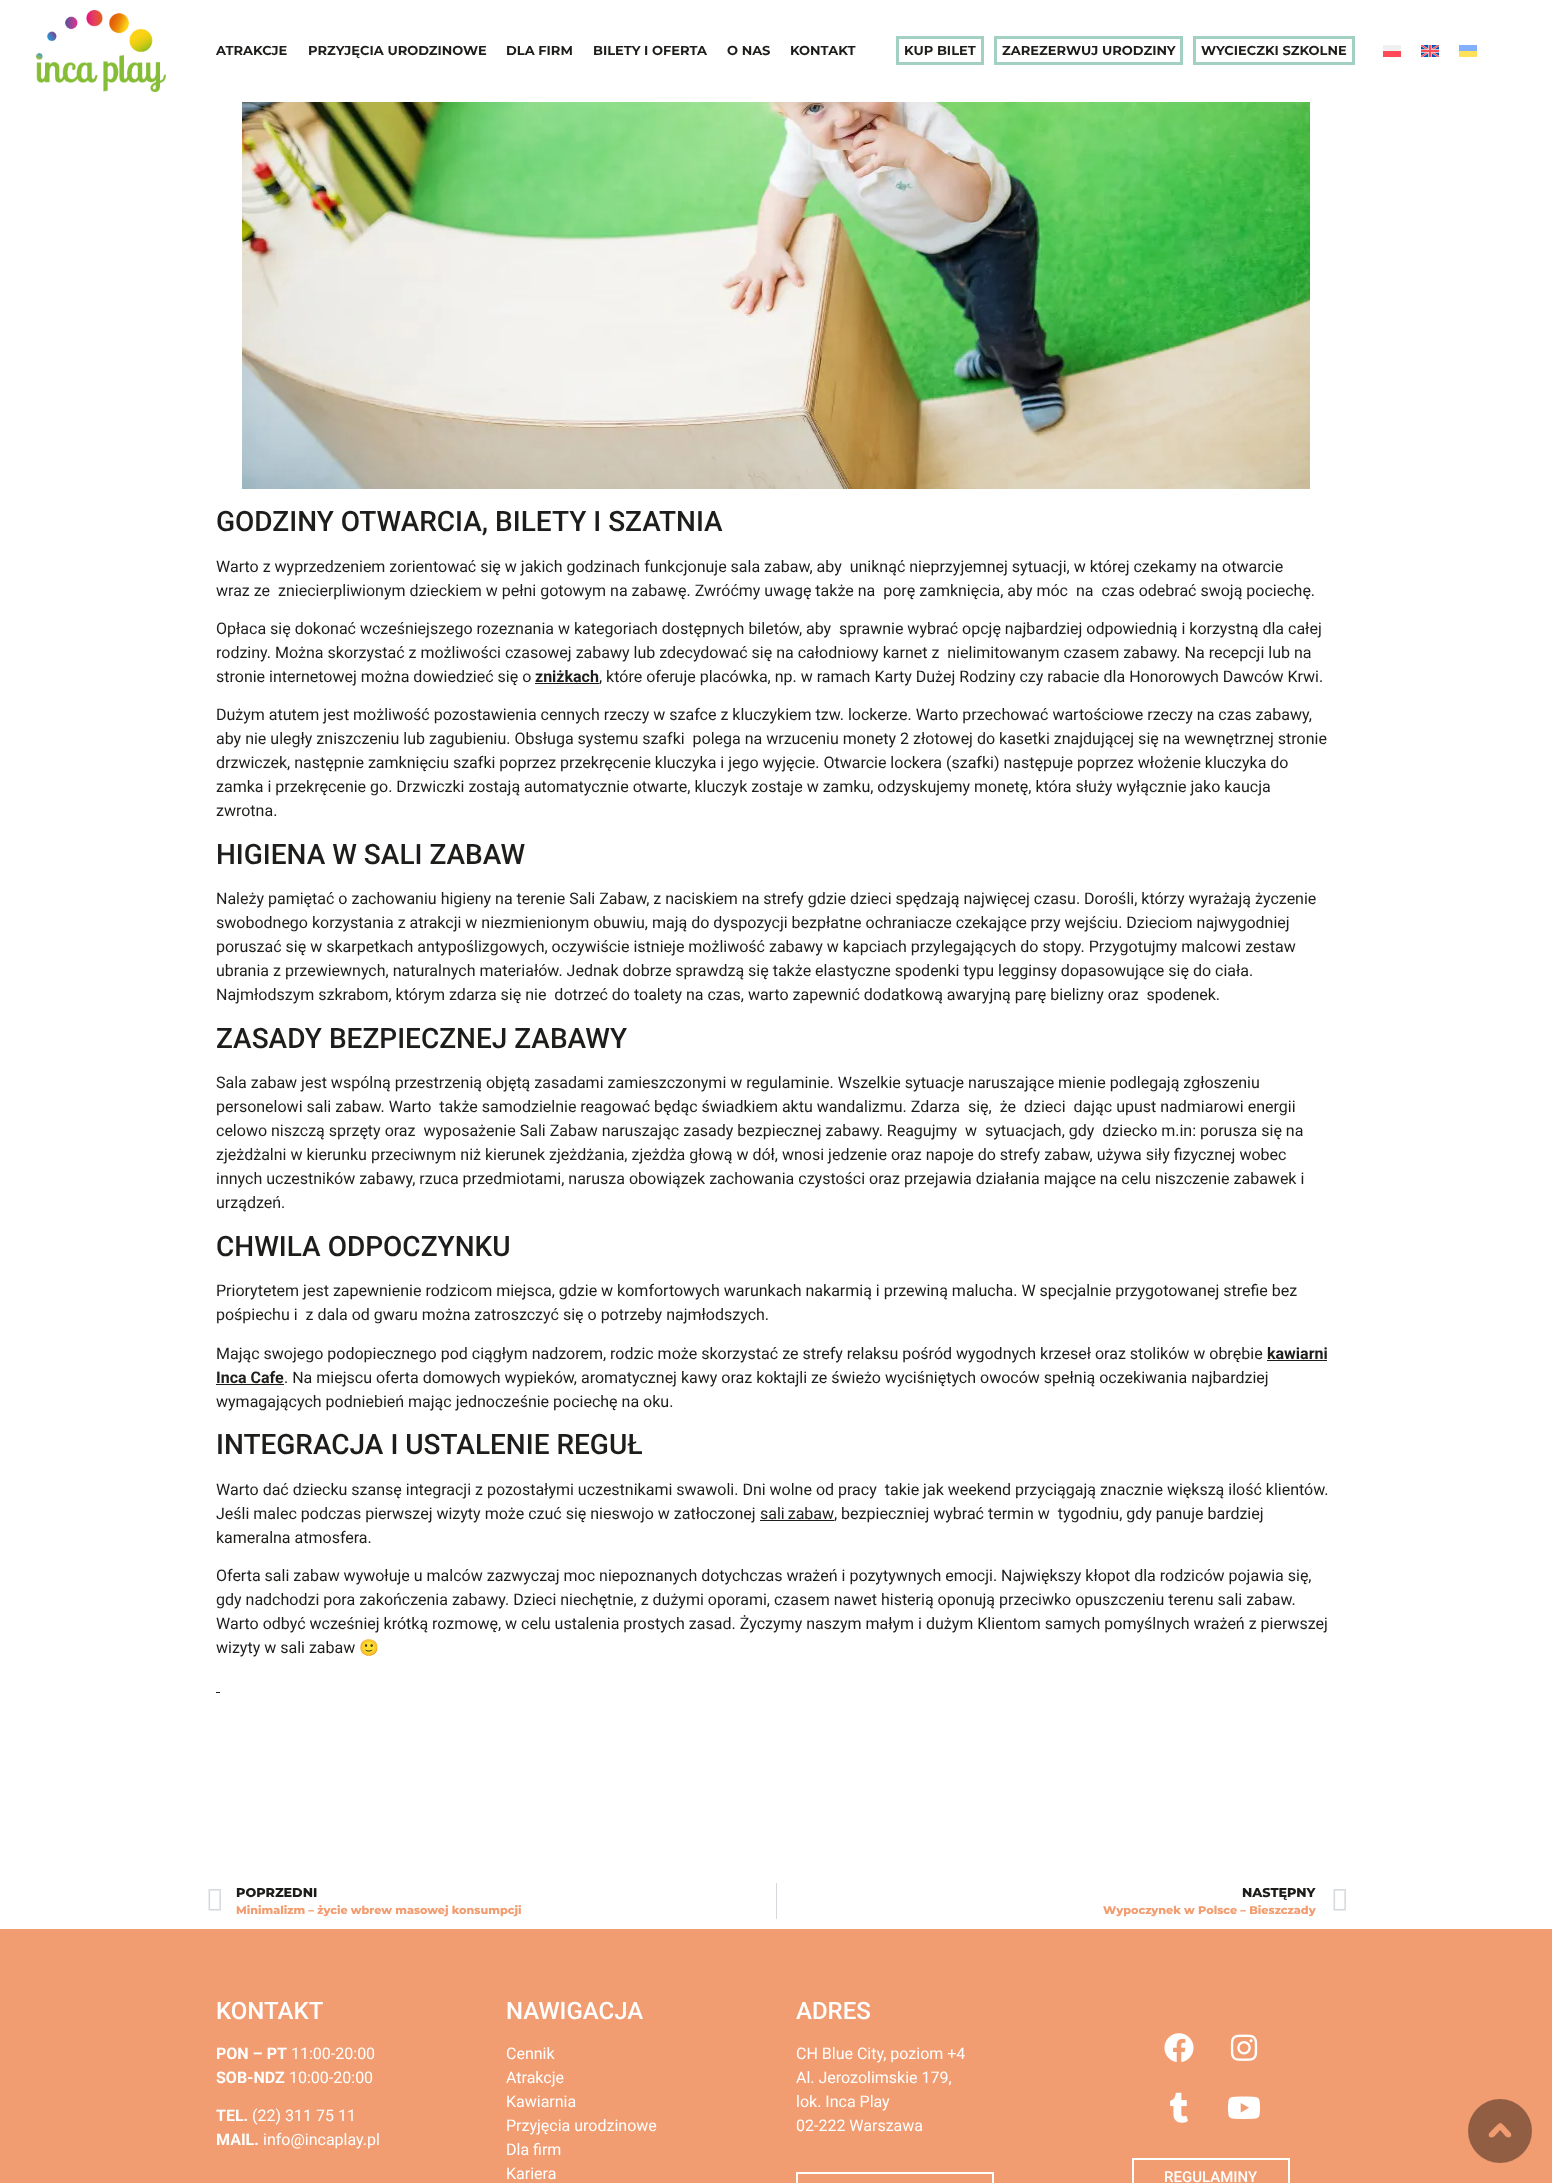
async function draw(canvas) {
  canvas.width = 1552;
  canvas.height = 2183;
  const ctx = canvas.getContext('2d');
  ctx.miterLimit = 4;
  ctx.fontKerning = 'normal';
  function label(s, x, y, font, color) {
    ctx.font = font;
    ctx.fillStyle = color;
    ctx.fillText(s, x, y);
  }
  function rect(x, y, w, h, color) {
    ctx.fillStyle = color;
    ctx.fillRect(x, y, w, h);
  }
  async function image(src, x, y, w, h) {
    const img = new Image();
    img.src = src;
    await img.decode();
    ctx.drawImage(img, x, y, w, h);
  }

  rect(0, 0, 1552, 2183, '#fff');
  await image('assets/img1.png', 36, 10, 130, 82);
  label('ATRAKCJE', 216, 55, 'bold 13px Montserrat', '#1d1d1b');
  label('PRZYJĘCIA URODZINOWE', 308, 55, 'bold 13px Montserrat', '#1d1d1b');
  label('DLA FIRM', 506, 55, 'bold 13px Montserrat', '#1d1d1b');
  label('BILETY I OFERTA', 593, 55, 'bold 13px Montserrat', '#1d1d1b');
  label('O NAS', 727, 55, 'bold 13px Montserrat', '#1d1d1b');
  label('KONTAKT', 790, 55, 'bold 13px Montserrat', '#1d1d1b');
  ctx.strokeStyle = '#a2d0c2';
  ctx.lineWidth = 3;
  ctx.strokeRect(897.5, 37.5, 85, 26);
  label('KUP BILET', 904, 55, 'bold 13px Montserrat', '#1d1d1b');
  ctx.strokeRect(995.5, 37.5, 186, 26);
  label('ZAREZERWUJ URODZINY', 1002, 55, 'bold 13px Montserrat', '#1d1d1b');
  ctx.strokeRect(1194.5, 37.5, 159, 26);
  label('WYCIECZKI SZKOLNE', 1201, 55, 'bold 13px Montserrat', '#1d1d1b');
  rect(1383, 45, 18, 6, '#f0f0f0');
  rect(1383, 51, 18, 6, '#ff4b55');
  await image('assets/img2.png', 1421, 45, 18, 12);
  rect(1459, 45, 18, 6, '#82afff');
  rect(1459, 51, 18, 6, '#ffe15a');
  await image('assets/img3.png', 242, 102, 1068, 387);
  label('GODZINY OTWARCIA, BILETY I SZATNIA', 216, 531, '500 28px Roboto', '#1d1d1b');
  label('Warto z wyprzedzeniem zorientować się w jakich godzinach funkcjonuje sala zabaw, aby  uniknąć nieprzyjemnej sytuacji, w której czekamy na otwarcie', 216, 572, '16px Roboto', '#1d1d1b');
  label('wraz ze  zniecierpliwionym dzieckiem w pełni gotowym na zabawę. Zwróćmy uwagę także na  porę zamknięcia, aby móc  na  czas odebrać swoją pociechę.', 216, 596, '16px Roboto', '#1d1d1b');
  label('Opłaca się dokonać wcześniejszego rozeznania w kategoriach dostępnych biletów, aby  sprawnie wybrać opcję najbardziej odpowiednią i korzystną dla całej', 216, 634, '16px Roboto', '#1d1d1b');
  label('rodziny. Można skorzystać z możliwości czasowej zabawy lub zdecydować się na całodniowy karnet z  nielimitowanym czasem zabawy. Na recepcji lub na', 216, 658, '16px Roboto', '#1d1d1b');
  label('stronie internetowej można dowiedzieć się o', 216, 682, '16px Roboto', '#1d1d1b');
  label('zniżkach', 535, 682, 'bold 16px Roboto', '#1d1d1b');
  rect(535, 683, 64, 1, '#1d1d1b');
  label(', które oferuje placówka, np. w ramach Karty Dużej Rodziny czy rabacie dla Honorowych Dawców Krwi.', 599, 682, '16px Roboto', '#1d1d1b');
  label('Dużym atutem jest możliwość pozostawienia cennych rzeczy w szafce z kluczykiem tzw. lockerze. Warto przechować wartościowe rzeczy na czas zabawy,', 216, 720, '16px Roboto', '#1d1d1b');
  label('aby nie uległy zniszczeniu lub zagubieniu. Obsługa systemu szafki  polega na wrzuceniu monety 2 złotowej do kasetki znajdującej się na wewnętrznej stronie', 216, 744, '16px Roboto', '#1d1d1b');
  label('drzwiczek, następnie zamknięciu szafki poprzez przekręcenie kluczyka i jego wyjęcie. Otwarcie lockera (szafki) następuje poprzez włożenie kluczyka do', 216, 768, '16px Roboto', '#1d1d1b');
  label('zamka i przekręcenie go. Drzwiczki zostają automatycznie otwarte, kluczyk zostaje w zamku, odzyskujemy monetę, która służy wyłącznie jako kaucja', 216, 792, '16px Roboto', '#1d1d1b');
  label('zwrotna.', 216, 816, '16px Roboto', '#1d1d1b');
  label('HIGIENA W SALI ZABAW', 216, 864, '500 28px Roboto', '#1d1d1b');
  label('Należy pamiętać o zachowaniu higieny na terenie Sali Zabaw, z naciskiem na strefy gdzie dzieci spędzają najwięcej czasu. Dorośli, którzy wyrażają życzenie', 216, 904, '16px Roboto', '#1d1d1b');
  label('swobodnego korzystania z atrakcji w niezmienionym obuwiu, mają do dyspozycji bezpłatne ochraniacze czekające przy wejściu. Dzieciom najwygodniej', 216, 928, '16px Roboto', '#1d1d1b');
  label('poruszać się w skarpetkach antypoślizgowych, oczywiście istnieje możliwość zabawy w kapciach przylegających do stopy. Przygotujmy malcowi zestaw', 216, 952, '16px Roboto', '#1d1d1b');
  label('ubrania z przewiewnych, naturalnych materiałów. Jednak dobrze sprawdzą się także elastyczne spodenki typu legginsy dopasowujące się do ciała.', 216, 976, '16px Roboto', '#1d1d1b');
  label('Najmłodszym szkrabom, którym zdarza się nie  dotrzeć do toalety na czas, warto zapewnić dodatkową awaryjną parę bielizny oraz  spodenek.', 216, 1000, '16px Roboto', '#1d1d1b');
  label('ZASADY BEZPIECZNEJ ZABAWY', 216, 1048, '500 28px Roboto', '#1d1d1b');
  label('Sala zabaw jest wspólną przestrzenią objętą zasadami zamieszczonymi w regulaminie. Wszelkie sytuacje naruszające mienie podlegają zgłoszeniu', 216, 1088, '16px Roboto', '#1d1d1b');
  label('personelowi sali zabaw. Warto  także samodzielnie reagować będąc świadkiem aktu wandalizmu. Zdarza  się,  że  dzieci  dając upust nadmiarowi energii', 216, 1112, '16px Roboto', '#1d1d1b');
  label('celowo niszczą sprzęty oraz  wyposażenie Sali Zabaw naruszając zasady bezpiecznej zabawy. Reagujmy  w  sytuacjach, gdy  dziecko m.in: porusza się na', 216, 1136, '16px Roboto', '#1d1d1b');
  label('zjeżdżalni w kierunku przeciwnym niż kierunek zjeżdżania, zjeżdża głową w dół, wnosi jedzenie oraz napoje do strefy zabaw, używa siły fizycznej wobec', 216, 1160, '16px Roboto', '#1d1d1b');
  label('innych uczestników zabawy, rzuca przedmiotami, narusza obowiązek zachowania czystości oraz przejawia działania mające na celu niszczenie zabawek i', 216, 1184, '16px Roboto', '#1d1d1b');
  label('urządzeń.', 216, 1208, '16px Roboto', '#1d1d1b');
  label('CHWILA ODPOCZYNKU', 216, 1256, '500 28px Roboto', '#1d1d1b');
  label('Priorytetem jest zapewnienie rodzicom miejsca, gdzie w komfortowych warunkach nakarmią i przewiną malucha. W specjalnie przygotowanej strefie bez', 216, 1296, '16px Roboto', '#1d1d1b');
  label('pośpiechu i  z dala od gwaru można zatroszczyć się o potrzeby najmłodszych.', 216, 1320, '16px Roboto', '#1d1d1b');
  label('Mając swojego podopiecznego pod ciągłym nadzorem, rodzic może skorzystać ze strefy relaksu pośród wygodnych krzeseł oraz stolików w obrębie', 216, 1359, '16px Roboto', '#1d1d1b');
  label('kawiarni', 1267, 1359, 'bold 16px Roboto', '#1d1d1b');
  rect(1267, 1360, 60, 1, '#1d1d1b');
  label('Inca Cafe', 216, 1383, 'bold 16px Roboto', '#1d1d1b');
  rect(216, 1384, 68, 1, '#1d1d1b');
  label('. Na miejscu oferta domowych wypieków, aromatycznej kawy oraz koktajli ze świeżo wyciśniętych owoców spełnią oczekiwania najbardziej', 284, 1383, '16px Roboto', '#1d1d1b');
  label('wymagających podniebień mając jednocześnie pociechę na oku.', 216, 1407, '16px Roboto', '#1d1d1b');
  label('INTEGRACJA I USTALENIE REGUŁ', 216, 1454, '500 28px Roboto', '#1d1d1b');
  label('Warto dać dziecku szansę integracji z pozostałymi uczestnikami swawoli. Dni wolne od pracy  takie jak weekend przyciągają znacznie większą ilość klientów.', 216, 1495, '16px Roboto', '#1d1d1b');
  label('Jeśli malec podczas pierwszej wizyty może czuć się nieswojo w zatłoczonej', 216, 1519, '16px Roboto', '#1d1d1b');
  ctx.wordSpacing = '-1px';
  label('sali zabaw', 760, 1519, '16px Roboto', '#1d1d1b');
  rect(760, 1520, 74, 1, '#1d1d1b');
  ctx.wordSpacing = '0px';
  label(', bezpieczniej wybrać termin w  tygodniu, gdy panuje bardziej', 834, 1519, '16px Roboto', '#1d1d1b');
  label('kameralna atmosfera.', 216, 1543, '16px Roboto', '#1d1d1b');
  label('Oferta sali zabaw wywołuje u malców zazwyczaj moc niepoznanych dotychczas wrażeń i pozytywnych emocji. Największy kłopot dla rodziców pojawia się,', 216, 1581, '16px Roboto', '#1d1d1b');
  label('gdy nadchodzi pora zakończenia zabawy. Dzieci niechętnie, z dużymi oporami, czasem nawet histerią oponują przeciwko opuszczeniu terenu sali zabaw.', 216, 1605, '16px Roboto', '#1d1d1b');
  label('Warto odbyć wcześniej krótką rozmowę, w celu ustalenia prostych zasad. Życzymy naszym małym i dużym Klientom samych pomyślnych wrażeń z pierwszej', 216, 1629, '16px Roboto', '#1d1d1b');
  label('wizyty w sali zabaw', 216, 1653, '16px Roboto', '#1d1d1b');
  label('🙂', 359, 1653, '16px Noto Color Emoji', '#1d1d1b');
  rect(216, 1692, 4, 1, '#1d1d1b');
  await image('assets/img4.png', 208, 1889, 13, 22);
  label('POPRZEDNI', 236, 1897, '800 12.75px Montserrat', '#1d1d1b');
  label('Minimalizm – życie wbrew masowej konsumpcji', 236, 1914, '800 11.2px Montserrat', '#f29d71');
  rect(776, 1883, 1, 36, '#d5d8dc');
  label('NASTĘPNY', 1242, 1897, '800 12.75px Montserrat', '#1d1d1b');
  label('Wypoczynek w Polsce – Bieszczady', 1103, 1914, '800 11.2px Montserrat', '#f29d71');
  await image('assets/img4.png', 1333, 1889, 13, 22);
  rect(0, 1929, 1552, 254, '#f29d71');
  label('KONTAKT', 216, 2019, '500 24px Roboto', '#fff');
  label('PON – PT', 216, 2059, 'bold 16px Roboto', '#fff');
  label('11:00-20:00', 291, 2059, '16px Roboto', '#fff');
  label('SOB-NDZ', 216, 2083, 'bold 16px Roboto', '#fff');
  label('10:00-20:00', 289, 2083, '16px Roboto', '#fff');
  label('TEL.', 216, 2121, 'bold 16px Roboto', '#fff');
  label('(22) 311 75 11', 252, 2121, '16px Roboto', '#fff');
  label('MAIL.', 216, 2145, 'bold 16px Roboto', '#fff');
  label('info@incaplay.pl', 263, 2145, '16px Roboto', '#fff');
  label('NAWIGACJA', 506, 2019, '500 24px Roboto', '#fff');
  label('Cennik', 506, 2059, '16px Roboto', '#fff');
  label('Atrakcje', 506, 2083, '16px Roboto', '#fff');
  label('Kawiarnia', 506, 2107, '16px Roboto', '#fff');
  label('Przyjęcia urodzinowe', 506, 2131, '16px Roboto', '#fff');
  label('Dla firm', 506, 2155, '16px Roboto', '#fff');
  label('Kariera', 506, 2179, '16px Roboto', '#fff');
  label('ADRES', 796, 2019, '500 24px Roboto', '#fff');
  label('CH Blue City, poziom +4', 796, 2059, '16px Roboto', '#fff');
  label('Al. Jerozolimskie 179,', 796, 2083, '16px Roboto', '#fff');
  label('lok. Inca Play', 796, 2107, '16px Roboto', '#fff');
  label('02-222 Warszawa', 796, 2131, '16px Roboto', '#fff');
  ctx.strokeStyle = '#fff';
  ctx.lineWidth = 2;
  ctx.strokeRect(797, 2173, 196, 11);
  await image('assets/img5.png', 1164, 2033, 30, 29);
  await image('assets/img6.png', 1230, 2034, 28, 27);
  await image('assets/img7.png', 1170, 2092, 18, 31);
  await image('assets/img8.png', 1228, 2096, 32, 23);
  ctx.strokeRect(1133, 2159, 156, 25);
  label('REGULAMINY', 1164, 2182, '500 15px Roboto', '#fff');
  await image('assets/img9.png', 1468, 2099, 64, 64);
}

draw(document.querySelector('canvas'));
